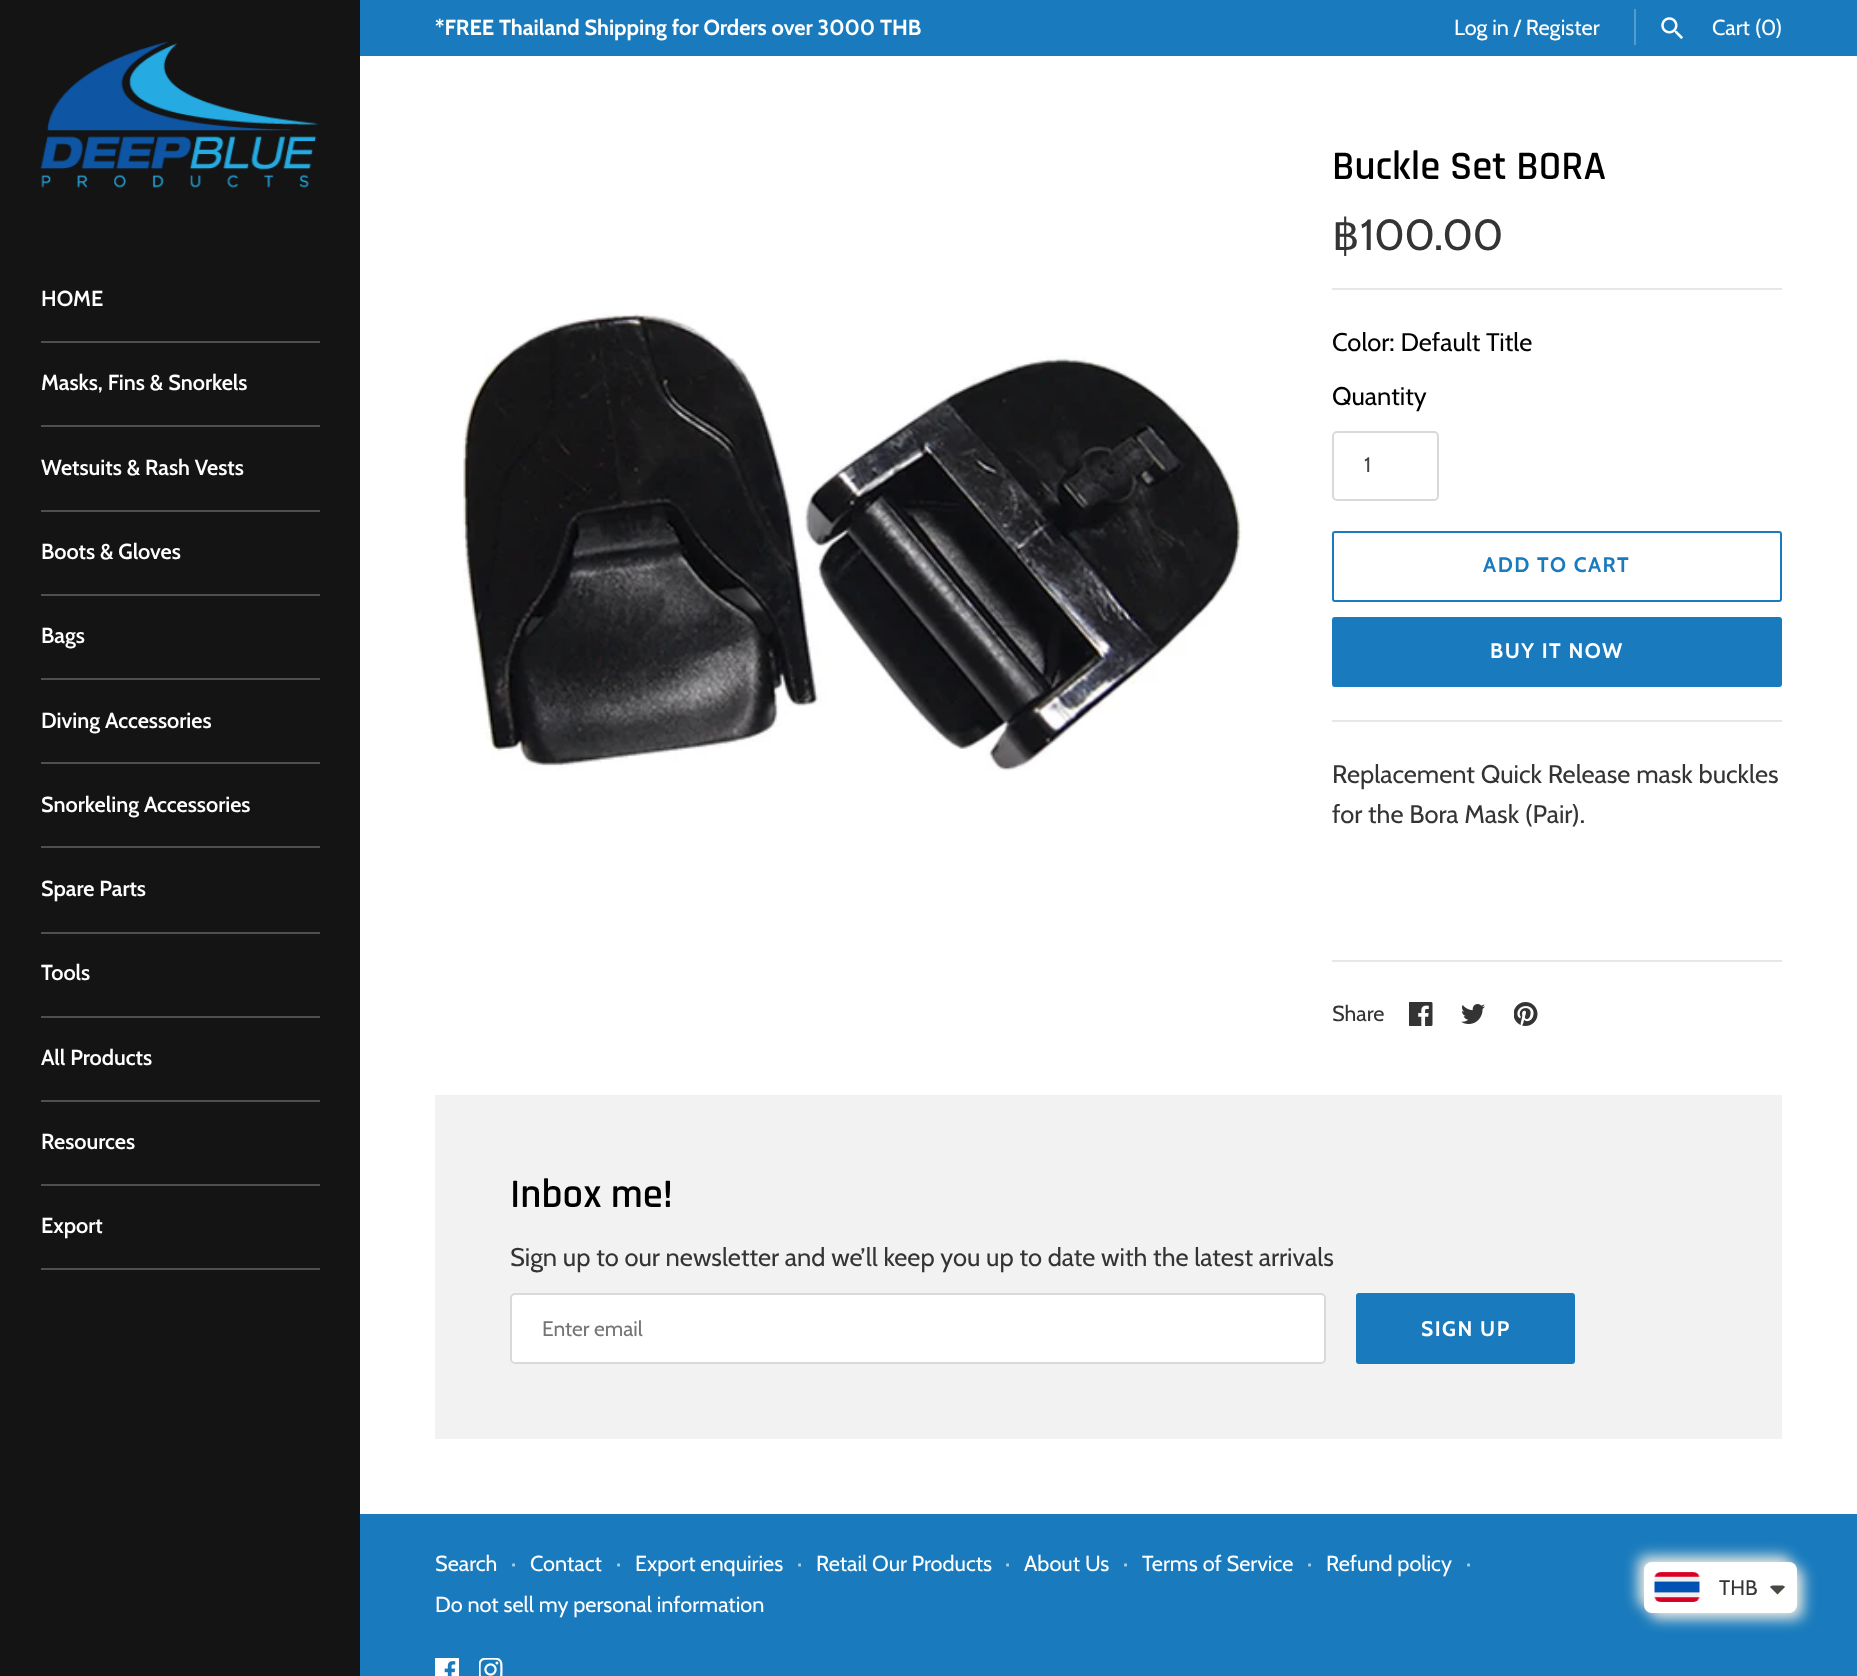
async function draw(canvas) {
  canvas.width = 1857;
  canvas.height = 1676;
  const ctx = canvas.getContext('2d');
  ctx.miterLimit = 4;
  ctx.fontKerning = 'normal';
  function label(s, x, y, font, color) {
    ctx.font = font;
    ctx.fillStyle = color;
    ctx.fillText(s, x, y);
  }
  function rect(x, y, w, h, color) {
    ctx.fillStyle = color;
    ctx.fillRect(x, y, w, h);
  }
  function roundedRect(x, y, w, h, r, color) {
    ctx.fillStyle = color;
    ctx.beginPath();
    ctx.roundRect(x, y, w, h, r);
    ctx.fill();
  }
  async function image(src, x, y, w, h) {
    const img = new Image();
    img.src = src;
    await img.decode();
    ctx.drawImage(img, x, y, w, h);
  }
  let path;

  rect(0, 0, 1857, 1676, '#fff');
  rect(360, 0, 1497, 56, '#197bbd');
  label('*FREE Thailand Shipping for Orders over 3000 THB', 435, 35, 'bold 21.7px Cabin', '#fff');
  label('Log in / Register', 1454, 35, '21.7px Cabin', '#fff');
  rect(1634, 9, 2, 36, '#539cce');
  await image('assets/img1.png', 1661, 17, 22, 22);
  label('Cart (0)', 1712, 35, '21.7px Cabin', '#fff');
  rect(0, 0, 360, 1676, '#141414');
  await image('assets/img2.png', 40, 41, 279, 147);
  rect(41, 341, 279, 2, '#4f4f4f');
  label('HOME', 41, 306, '600 21.7px Cabin', '#fff');
  rect(41, 425, 279, 2, '#4f4f4f');
  label('Masks, Fins & Snorkels', 41, 390, '600 21.7px Cabin', '#fff');
  rect(41, 510, 279, 2, '#4f4f4f');
  label('Wetsuits & Rash Vests', 41, 475, '600 21.7px Cabin', '#fff');
  rect(41, 594, 279, 2, '#4f4f4f');
  label('Boots & Gloves', 41, 559, '600 21.7px Cabin', '#fff');
  rect(41, 678, 279, 2, '#4f4f4f');
  label('Bags', 41, 643, '600 21.7px Cabin', '#fff');
  rect(41, 762, 279, 2, '#4f4f4f');
  label('Diving Accessories', 41, 728, '600 21.7px Cabin', '#fff');
  rect(41, 846, 279, 2, '#4f4f4f');
  label('Snorkeling Accessories', 41, 812, '600 21.7px Cabin', '#fff');
  rect(41, 932, 279, 2, '#4f4f4f');
  label('Spare Parts', 41, 896, '600 21.7px Cabin', '#fff');
  rect(41, 1016, 279, 2, '#4f4f4f');
  label('Tools', 41, 980, '600 21.7px Cabin', '#fff');
  rect(41, 1100, 279, 2, '#4f4f4f');
  label('All Products', 41, 1065, '600 21.7px Cabin', '#fff');
  rect(41, 1184, 279, 2, '#4f4f4f');
  label('Resources', 41, 1149, '600 21.7px Cabin', '#fff');
  rect(41, 1268, 279, 2, '#4f4f4f');
  label('Export', 41, 1233, '600 21.7px Cabin', '#fff');
  await image('assets/img3.png', 463, 313, 779, 458);
  label('Buckle Set BORA', 1332, 179, '600 40.75px Rajdhani', '#000');
  label('฿', 1332, 250, '43.5px DejaVu Sans', '#343434');
  label('100.00', 1360, 250, '43.5px Cabin', '#343434');
  rect(1332, 288, 450, 2, '#e7e7e7');
  label('Color: Default Title', 1332, 351, '25.5px Cabin', '#000');
  label('Quantity', 1332, 405, '25.5px Cabin', '#000');
  ctx.beginPath();
  ctx.roundRect(1333, 432, 105, 68, 4);
  ctx.strokeStyle = '#d9d9d9';
  ctx.lineWidth = 2;
  ctx.stroke();
  label('1', 1364, 472, '21px Cabin', '#444');
  ctx.beginPath();
  ctx.roundRect(1333, 532, 448, 69, 2);
  ctx.strokeStyle = '#197bbd';
  ctx.stroke();
  ctx.letterSpacing = '1.5px';
  label('ADD TO CART', 1483, 572, 'bold 21px Cabin', '#197bbd');
  ctx.beginPath();
  ctx.roundRect(1333, 618, 448, 68, 2);
  ctx.fill();
  ctx.stroke();
  label('BUY IT NOW', 1490, 658, 'bold 21px Cabin', '#fff');
  rect(1332, 720, 450, 2, '#e7e7e7');
  ctx.letterSpacing = '0px';
  label('Replacement Quick Release mask buckles', 1332, 783, '25.5px Cabin', '#343434');
  label('for the Bora Mask (Pair).', 1332, 823, '25.5px Cabin', '#343434');
  rect(1332, 960, 450, 2, '#e7e7e7');
  label('Share', 1332, 1021, '21.7px Cabin', '#343434');
  await image('assets/img4.png', 1409, 1002, 24, 24);
  await image('assets/img5.png', 1461, 1004, 24, 20);
  await image('assets/img6.png', 1514, 1002, 24, 24);
  rect(435, 1095, 1347, 344, '#f2f2f2');
  label('Inbox me!', 510, 1207, '600 40.75px Rajdhani', '#000');
  label('Sign up to our newsletter and we’ll keep you up to date with the latest arrivals', 510, 1266, '25.5px Cabin', '#343434');
  roundedRect(510, 1293, 816, 71, 5, '#fff');
  ctx.beginPath();
  ctx.roundRect(511, 1294, 814, 69, 4);
  ctx.strokeStyle = '#00000026';
  ctx.stroke();
  label('Enter email', 542, 1336, '21px Cabin', '#757575');
  ctx.fillStyle = '#197bbd';
  ctx.beginPath();
  ctx.roundRect(1357, 1294, 217, 69, 2);
  ctx.fill();
  ctx.strokeStyle = '#197bbd';
  ctx.stroke();
  ctx.letterSpacing = '1.5px';
  label('SIGN UP', 1421, 1336, 'bold 21px Cabin', '#fff');
  rect(360, 1514, 1497, 162, '#197bbd');
  ctx.letterSpacing = '0px';
  label('Search', 435, 1571, '21.7px Cabin', '#fff');
  label('·', 511, 1571, '21.7px Cabin', '#afd1e8');
  label('Contact', 530, 1571, '21.7px Cabin', '#fff');
  label('·', 616, 1571, '21.7px Cabin', '#afd1e8');
  label('Export enquiries', 635, 1571, '21.7px Cabin', '#fff');
  label('·', 797, 1571, '21.7px Cabin', '#afd1e8');
  label('Retail Our Products', 816, 1571, '21.7px Cabin', '#fff');
  label('·', 1005, 1571, '21.7px Cabin', '#afd1e8');
  label('About Us', 1024, 1571, '21.7px Cabin', '#fff');
  label('·', 1123, 1571, '21.7px Cabin', '#afd1e8');
  label('Terms of Service', 1142, 1571, '21.7px Cabin', '#fff');
  label('·', 1307, 1571, '21.7px Cabin', '#afd1e8');
  label('Refund policy', 1326, 1571, '21.7px Cabin', '#fff');
  label('·', 1466, 1571, '21.7px Cabin', '#afd1e8');
  label('Do not sell my personal information', 435, 1612, '21.7px Cabin', '#fff');
  await image('assets/img7.png', 435, 1658, 24, 18);
  await image('assets/img8.png', 479, 1658, 24, 18);
  ctx.fillStyle = '#e8e8e2';
  ctx.filter = 'blur(7px)';
  ctx.beginPath();
  ctx.roundRect(1638, 1556, 153, 51, 8);
  ctx.fill();
  ctx.filter = 'none';
  ctx.filter = 'blur(7px)';
  ctx.beginPath();
  ctx.roundRect(1650, 1568, 153, 51, 8);
  ctx.fill();
  ctx.filter = 'none';
  roundedRect(1644, 1562, 153, 51, 8, '#fff');
  await image('assets/img9.png', 1654, 1572, 46, 30);
  label('THB', 1719, 1595, '21px Cabin', '#343434');
  ctx.fillStyle = '#474942';
  path = new Path2D('M1773 1585.5C1772 1585.5 1770.5 1586 1770 1587L1777.5 1594.5L1785 1587C1784.5 1586 1783 1585.5 1782 1585.5Z');
  ctx.fill(path);
}

draw(document.querySelector('canvas'));
